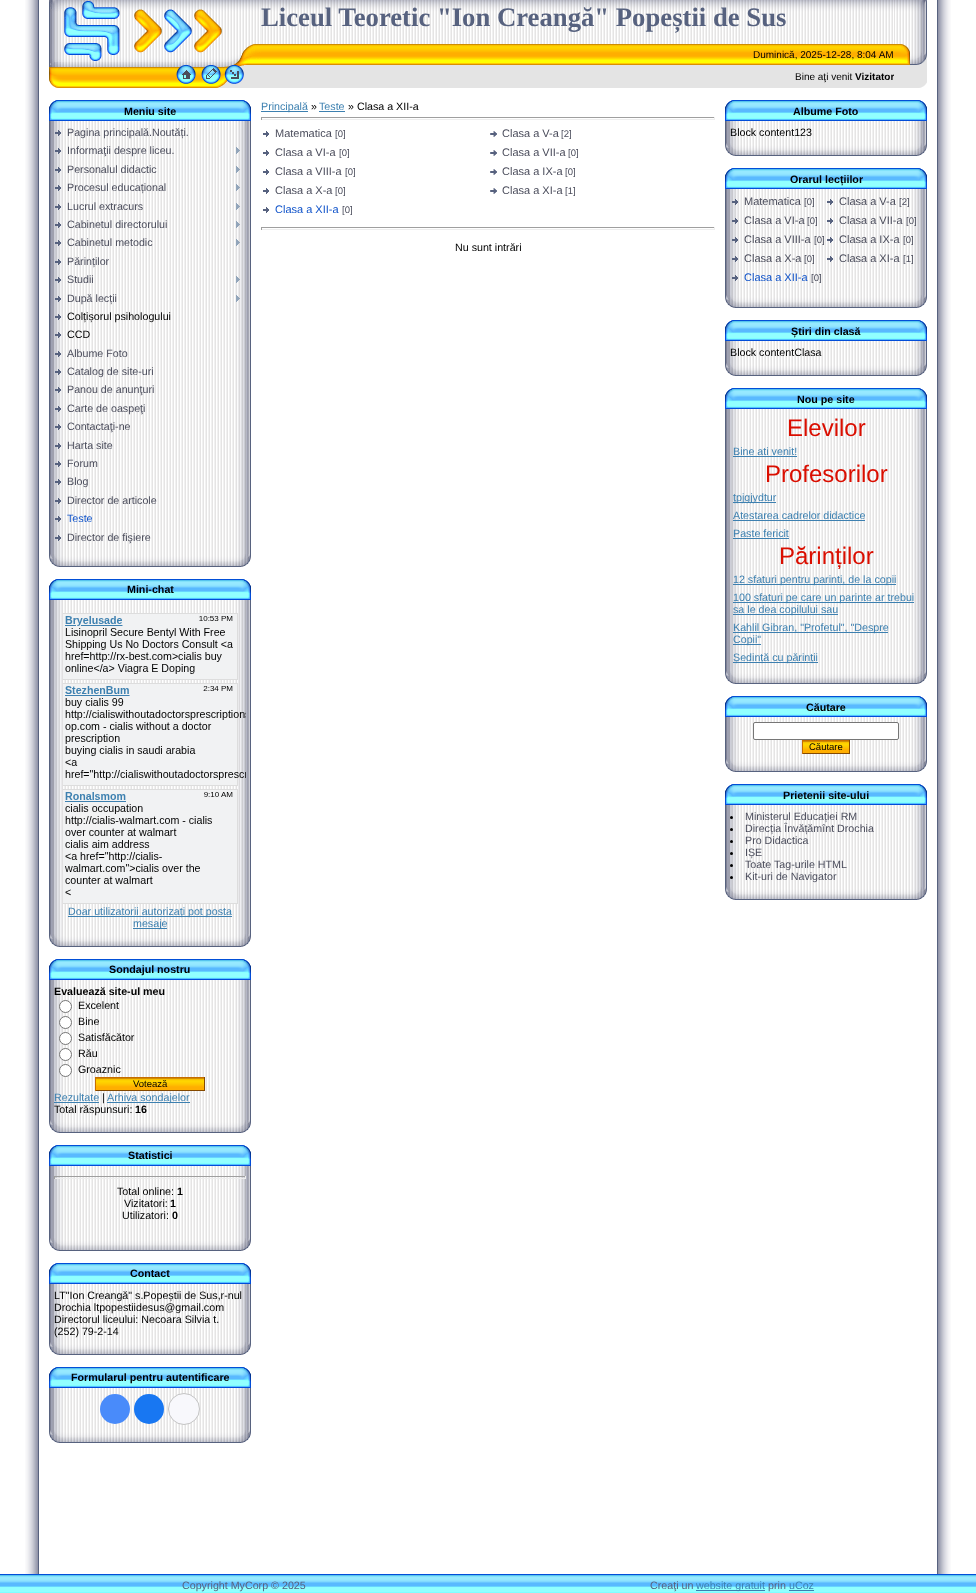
async function draw(canvas) {
  canvas.width = 976;
  canvas.height = 1593;
  const ctx = canvas.getContext('2d');
  ctx.miterLimit = 4;
  ctx.fontKerning = 'normal';
  function label(s, x, y, font, color) {
    ctx.font = font;
    ctx.fillStyle = color;
    ctx.fillText(s, x, y);
  }
  function rect(x, y, w, h, color) {
    ctx.fillStyle = color;
    ctx.fillRect(x, y, w, h);
  }
  async function image(src, x, y, w, h) {
    const img = new Image();
    img.src = src;
    await img.decode();
    ctx.drawImage(img, x, y, w, h);
  }

  rect(0, 0, 976, 1593, '#fff');
  await image('assets/img1.png', 25, 0, 14, 1574);
  await image('assets/img2.png', 49, 0, 212, 44);
  await image('assets/img3.png', 261, 0, 633, 44);
  label('Liceul Teoretic "Ion Creangă" Popeștii de Sus', 261, 26, 'bold 26.7px Liberation Serif', '#57627f');
  await image('assets/img4.png', 894, 0, 33, 44);
  await image('assets/img5.png', 49, 44, 212, 21);
  await image('assets/img6.png', 261, 44, 633, 21);
  label('Duminică, 2025-12-28, 8:04 AM', 753, 58, '10px Liberation Sans', '#000');
  await image('assets/img7.png', 894, 44, 33, 21);
  await image('assets/img8.png', 49, 65, 127, 23);
  await image('assets/img9.png', 176, 65, 20, 23);
  await image('assets/img10.png', 196, 65, 5, 23);
  await image('assets/img11.png', 201, 65, 20, 23);
  await image('assets/img12.png', 221, 65, 4, 23);
  await image('assets/img13.png', 225, 65, 19, 23);
  rect(244, 65, 650, 23, '#e4e4e4');
  label('Bine aţi venit', 795, 80, '10px Liberation Sans', '#000');
  label('Vizitator', 855, 80, 'bold 10px Liberation Sans', '#000');
  await image('assets/img14.png', 894, 65, 33, 23);
  await image('assets/img15.png', 49, 100, 202, 21);
  label('Meniu site', 124, 115, 'bold 10.7px Liberation Sans', '#000');
  await image('assets/img16.png', 49, 121, 202, 433);
  await image('assets/img17.png', 55, 130, 6, 6);
  label('Pagina principală.Noutăți.', 67, 136, '10.7px Liberation Sans', '#4b4d5c');
  await image('assets/img17.png', 55, 148, 6, 6);
  label('Informaţii despre liceu.', 67, 154, '10.7px Liberation Sans', '#4b4d5c');
  await image('assets/img18.png', 236, 147, 4, 7);
  await image('assets/img17.png', 55, 167, 6, 6);
  label('Personalul didactic', 67, 173, '10.7px Liberation Sans', '#4b4d5c');
  await image('assets/img18.png', 236, 166, 4, 7);
  await image('assets/img17.png', 55, 185, 6, 6);
  label('Procesul educațional', 67, 191, '10.7px Liberation Sans', '#4b4d5c');
  await image('assets/img18.png', 236, 184, 4, 7);
  await image('assets/img17.png', 55, 204, 6, 6);
  label('Lucrul extracurs', 67, 210, '10.7px Liberation Sans', '#4b4d5c');
  await image('assets/img18.png', 236, 203, 4, 7);
  await image('assets/img17.png', 55, 222, 6, 6);
  label('Cabinetul directorului', 67, 228, '10.7px Liberation Sans', '#4b4d5c');
  await image('assets/img18.png', 236, 221, 4, 7);
  await image('assets/img17.png', 55, 240, 6, 6);
  label('Cabinetul metodic', 67, 246, '10.7px Liberation Sans', '#4b4d5c');
  await image('assets/img18.png', 236, 239, 4, 7);
  await image('assets/img17.png', 55, 259, 6, 6);
  label('Părinților', 67, 265, '10.7px Liberation Sans', '#4b4d5c');
  await image('assets/img17.png', 55, 277, 6, 6);
  label('Studii', 67, 283, '10.7px Liberation Sans', '#4b4d5c');
  await image('assets/img18.png', 236, 276, 4, 7);
  await image('assets/img17.png', 55, 296, 6, 6);
  label('După lecții', 67, 302, '10.7px Liberation Sans', '#4b4d5c');
  await image('assets/img18.png', 236, 295, 4, 7);
  await image('assets/img17.png', 55, 314, 6, 6);
  label('Colțișorul psihologului', 67, 320, '10.7px Liberation Sans', '#000');
  await image('assets/img17.png', 55, 332, 6, 6);
  label('CCD', 67, 338, '10.7px Liberation Sans', '#000');
  await image('assets/img17.png', 55, 351, 6, 6);
  label('Albume Foto', 67, 357, '10.7px Liberation Sans', '#4b4d5c');
  await image('assets/img17.png', 55, 369, 6, 6);
  label('Catalog de site-uri', 67, 375, '10.7px Liberation Sans', '#4b4d5c');
  await image('assets/img17.png', 55, 387, 6, 6);
  label('Panou de anunţuri', 67, 393, '10.7px Liberation Sans', '#4b4d5c');
  await image('assets/img17.png', 55, 406, 6, 6);
  label('Carte de oaspeţi', 67, 412, '10.7px Liberation Sans', '#4b4d5c');
  await image('assets/img17.png', 55, 424, 6, 6);
  label('Contactaţi-ne', 67, 430, '10.7px Liberation Sans', '#4b4d5c');
  await image('assets/img17.png', 55, 443, 6, 6);
  label('Harta site', 67, 449, '10.7px Liberation Sans', '#4b4d5c');
  await image('assets/img17.png', 55, 461, 6, 6);
  label('Forum', 67, 467, '10.7px Liberation Sans', '#4b4d5c');
  await image('assets/img17.png', 55, 479, 6, 6);
  label('Blog', 67, 485, '10.7px Liberation Sans', '#4b4d5c');
  await image('assets/img17.png', 55, 498, 6, 6);
  label('Director de articole', 67, 504, '10.7px Liberation Sans', '#4b4d5c');
  await image('assets/img17.png', 55, 516, 6, 6);
  label('Teste', 67, 522, '10.7px Liberation Sans', '#1154ca');
  await image('assets/img17.png', 55, 535, 6, 6);
  label('Director de fişiere', 67, 541, '10.7px Liberation Sans', '#4b4d5c');
  await image('assets/img19.png', 49, 554, 202, 13);
  await image('assets/img15.png', 49, 579, 202, 21);
  label('Mini-chat', 127, 593, 'bold 10.7px Liberation Sans', '#000');
  await image('assets/img20.png', 49, 600, 202, 334);
  await image('assets/img21.png', 63, 613, 183, 291);
  rect(68, 916, 164, 1, '#3d80b0');
  label('Doar utilizatorii autorizați pot posta', 68, 915, '10.7px Liberation Sans', '#3d80b0');
  rect(133, 928, 34, 1, '#3d80b0');
  label('mesaje', 133, 927, '10.7px Liberation Sans', '#3d80b0');
  await image('assets/img19.png', 49, 934, 202, 13);
  await image('assets/img15.png', 49, 959, 202, 21);
  label('Sondajul nostru', 109, 973, 'bold 10.7px Liberation Sans', '#000');
  await image('assets/img22.png', 49, 980, 202, 140);
  label('Evaluează site-ul meu', 54, 995, 'bold 10.7px Liberation Sans', '#000');
  ctx.fillStyle = '#fff';
  ctx.beginPath();
  ctx.arc(65.5, 1006.5, 6, 0, 2 * Math.PI);
  ctx.fill();
  ctx.strokeStyle = '#767676';
  ctx.stroke();
  label('Excelent', 78, 1009, '10.7px Liberation Sans', '#000');
  ctx.fillStyle = '#fff';
  ctx.beginPath();
  ctx.arc(65.5, 1022.5, 6, 0, 2 * Math.PI);
  ctx.fill();
  ctx.stroke();
  label('Bine', 78, 1025, '10.7px Liberation Sans', '#000');
  ctx.fillStyle = '#fff';
  ctx.beginPath();
  ctx.arc(65.5, 1038.5, 6, 0, 2 * Math.PI);
  ctx.fill();
  ctx.stroke();
  label('Satisfăcător', 78, 1041, '10.7px Liberation Sans', '#000');
  ctx.fillStyle = '#fff';
  ctx.beginPath();
  ctx.arc(65.5, 1054.5, 6, 0, 2 * Math.PI);
  ctx.fill();
  ctx.stroke();
  label('Rău', 78, 1057, '10.7px Liberation Sans', '#000');
  ctx.fillStyle = '#fff';
  ctx.beginPath();
  ctx.arc(65.5, 1070.5, 6, 0, 2 * Math.PI);
  ctx.fill();
  ctx.stroke();
  label('Groaznic', 78, 1073, '10.7px Liberation Sans', '#000');
  await image('assets/img23.png', 96, 1078, 108, 12);
  rect(95, 1077, 110, 1, '#c66d00');
  rect(204, 1077, 1, 14, '#844900');
  rect(95, 1090, 110, 1, '#844900');
  rect(95, 1077, 1, 14, '#c66d00');
  label('Votează', 133, 1087, '9.5px Liberation Sans', '#000');
  label('Rezultate', 54, 1101, '10.7px Liberation Sans', '#3d80b0');
  rect(54, 1102, 45, 1, '#3d80b0');
  label('|', 102, 1101, '10.7px Liberation Sans', '#000');
  rect(107, 1102, 83, 1, '#3d80b0');
  label('Arhiva sondajelor', 107, 1101, '10.7px Liberation Sans', '#3d80b0');
  label('Total răspunsuri:', 54, 1113, '10.7px Liberation Sans', '#000');
  label('16', 135, 1113, 'bold 10.7px Liberation Sans', '#000');
  await image('assets/img19.png', 49, 1120, 202, 13);
  await image('assets/img15.png', 49, 1145, 202, 21);
  label('Statistici', 128, 1159, 'bold 10.7px Liberation Sans', '#000');
  await image('assets/img24.png', 49, 1166, 202, 72);
  rect(54, 1176, 192, 1, '#9f9f9f');
  rect(245, 1176, 1, 3, '#eee');
  rect(54, 1178, 192, 1, '#eee');
  rect(54, 1176, 1, 3, '#9f9f9f');
  label('Total online:', 117, 1195, '10.7px Liberation Sans', '#000');
  label('1', 177, 1195, 'bold 10.7px Liberation Sans', '#000');
  label('Vizitatori:', 124, 1207, '10.7px Liberation Sans', '#000');
  label('1', 170, 1207, 'bold 10.7px Liberation Sans', '#000');
  label('Utilizatori:', 122, 1219, '10.7px Liberation Sans', '#000');
  label('0', 172, 1219, 'bold 10.7px Liberation Sans', '#000');
  await image('assets/img19.png', 49, 1238, 202, 13);
  await image('assets/img15.png', 49, 1263, 202, 21);
  label('Contact', 130, 1277, 'bold 10.7px Liberation Sans', '#000');
  await image('assets/img25.png', 49, 1284, 202, 58);
  label('LT"Ion Creangă" s.Popeștii de Sus,r-nul', 54, 1299, '10.7px Liberation Sans', '#000');
  label('Drochia ltpopestiidesus@gmail.com', 54, 1311, '10.7px Liberation Sans', '#000');
  label('Directorul liceului: Necoara Silvia t.', 54, 1323, '10.7px Liberation Sans', '#000');
  label('(252) 79-2-14', 54, 1335, '10.7px Liberation Sans', '#000');
  await image('assets/img19.png', 49, 1342, 202, 13);
  await image('assets/img15.png', 49, 1367, 202, 21);
  label('Formularul pentru autentificare', 71, 1381, 'bold 10.7px Liberation Sans', '#000');
  await image('assets/img26.png', 49, 1388, 202, 42);
  ctx.fillStyle = '#498bfa';
  ctx.beginPath();
  ctx.arc(115, 1409, 15, 0, 2 * Math.PI);
  ctx.fill();
  ctx.fillStyle = '#1877f2';
  ctx.beginPath();
  ctx.arc(149, 1409, 15, 0, 2 * Math.PI);
  ctx.fill();
  ctx.fillStyle = '#f8f8fc';
  ctx.beginPath();
  ctx.arc(184, 1409, 15.5, 0, 2 * Math.PI);
  ctx.fill();
  ctx.strokeStyle = '#c4c4c4';
  ctx.stroke();
  await image('assets/img19.png', 49, 1430, 202, 13);
  rect(261, 111, 47, 1, '#3d80b0');
  label('Principală', 261, 110, '10.7px Liberation Sans', '#3d80b0');
  label('»', 311, 110, '10.7px Liberation Sans', '#000');
  label('Teste', 319, 110, '10.7px Liberation Sans', '#3d80b0');
  rect(319, 111, 26, 1, '#3d80b0');
  label('» Clasa a XII-a', 348, 110, '10.7px Liberation Sans', '#000');
  rect(261, 117, 454, 1, '#9f9f9f');
  rect(714, 117, 1, 3, '#eee');
  rect(261, 119, 454, 1, '#eee');
  rect(261, 117, 1, 3, '#9f9f9f');
  await image('assets/img27.png', 263, 131, 6, 6);
  label('Matematica', 275, 137, '11px Liberation Sans', '#4b4d5c');
  label('[0]', 335, 137, '9.5px Liberation Sans', '#4b4d5c');
  await image('assets/img28.png', 490, 131, 7, 6);
  label('Clasa a V-a', 502, 137, '11px Liberation Sans', '#4b4d5c');
  label('[2]', 561, 137, '9.5px Liberation Sans', '#4b4d5c');
  await image('assets/img27.png', 263, 150, 6, 6);
  label('Clasa a VI-a', 275, 156, '11px Liberation Sans', '#4b4d5c');
  label('[0]', 339, 156, '9.5px Liberation Sans', '#4b4d5c');
  await image('assets/img28.png', 490, 150, 7, 6);
  label('Clasa a VII-a', 502, 156, '11px Liberation Sans', '#4b4d5c');
  label('[0]', 568, 156, '9.5px Liberation Sans', '#4b4d5c');
  await image('assets/img27.png', 263, 169, 6, 6);
  label('Clasa a VIII-a', 275, 175, '11px Liberation Sans', '#4b4d5c');
  label('[0]', 345, 175, '9.5px Liberation Sans', '#4b4d5c');
  await image('assets/img28.png', 490, 169, 7, 6);
  label('Clasa a IX-a', 502, 175, '11px Liberation Sans', '#4b4d5c');
  label('[0]', 565, 175, '9.5px Liberation Sans', '#4b4d5c');
  await image('assets/img27.png', 263, 188, 6, 6);
  label('Clasa a X-a', 275, 194, '11px Liberation Sans', '#4b4d5c');
  label('[0]', 335, 194, '9.5px Liberation Sans', '#4b4d5c');
  await image('assets/img28.png', 490, 188, 7, 6);
  label('Clasa a XI-a', 502, 194, '11px Liberation Sans', '#4b4d5c');
  label('[1]', 565, 194, '9.5px Liberation Sans', '#4b4d5c');
  await image('assets/img27.png', 263, 207, 6, 6);
  label('Clasa a XII-a', 275, 213, '11px Liberation Sans', '#1154ca');
  label('[0]', 342, 213, '9.5px Liberation Sans', '#4b4d5c');
  rect(261, 227, 454, 1, '#9f9f9f');
  rect(714, 227, 1, 3, '#eee');
  rect(261, 229, 454, 1, '#eee');
  rect(261, 227, 1, 3, '#9f9f9f');
  label('Nu sunt intrări', 455, 251, '10.7px Liberation Sans', '#000');
  await image('assets/img15.png', 725, 100, 202, 21);
  label('Albume Foto', 793, 115, 'bold 10.7px Liberation Sans', '#000');
  await image('assets/img29.png', 725, 121, 202, 22);
  label('Block content123', 730, 136, '10.7px Liberation Sans', '#000');
  await image('assets/img19.png', 725, 143, 202, 13);
  await image('assets/img15.png', 725, 168, 202, 21);
  label('Orarul lecțiilor', 790, 183, 'bold 10.7px Liberation Sans', '#000');
  await image('assets/img30.png', 725, 189, 202, 106);
  await image('assets/img31.png', 732, 199, 6, 6);
  label('Matematica', 744, 205, '11px Liberation Sans', '#4b4d5c');
  label('[0]', 804, 205, '9.5px Liberation Sans', '#4b4d5c');
  await image('assets/img32.png', 827, 199, 6, 6);
  label('Clasa a V-a', 839, 205, '11px Liberation Sans', '#4b4d5c');
  label('[2]', 899, 205, '9.5px Liberation Sans', '#4b4d5c');
  await image('assets/img31.png', 732, 218, 6, 6);
  label('Clasa a VI-a', 744, 224, '11px Liberation Sans', '#4b4d5c');
  label('[0]', 807, 224, '9.5px Liberation Sans', '#4b4d5c');
  await image('assets/img32.png', 827, 218, 6, 6);
  label('Clasa a VII-a', 839, 224, '11px Liberation Sans', '#4b4d5c');
  label('[0]', 906, 224, '9.5px Liberation Sans', '#4b4d5c');
  await image('assets/img31.png', 732, 237, 6, 6);
  label('Clasa a VIII-a', 744, 243, '11px Liberation Sans', '#4b4d5c');
  label('[0]', 814, 243, '9.5px Liberation Sans', '#4b4d5c');
  await image('assets/img32.png', 827, 237, 6, 6);
  label('Clasa a IX-a', 839, 243, '11px Liberation Sans', '#4b4d5c');
  label('[0]', 903, 243, '9.5px Liberation Sans', '#4b4d5c');
  await image('assets/img31.png', 732, 256, 6, 6);
  label('Clasa a X-a', 744, 262, '11px Liberation Sans', '#4b4d5c');
  label('[0]', 804, 262, '9.5px Liberation Sans', '#4b4d5c');
  await image('assets/img32.png', 827, 256, 6, 6);
  label('Clasa a XI-a', 839, 262, '11px Liberation Sans', '#4b4d5c');
  label('[1]', 903, 262, '9.5px Liberation Sans', '#4b4d5c');
  await image('assets/img31.png', 732, 275, 6, 6);
  label('Clasa a XII-a', 744, 281, '11px Liberation Sans', '#1154ca');
  label('[0]', 811, 281, '9.5px Liberation Sans', '#4b4d5c');
  await image('assets/img19.png', 725, 295, 202, 13);
  await image('assets/img15.png', 725, 320, 202, 21);
  label('Știri din clasă', 791, 335, 'bold 10.7px Liberation Sans', '#000');
  await image('assets/img29.png', 725, 341, 202, 22);
  label('Block contentClasa', 730, 356, '10.7px Liberation Sans', '#000');
  await image('assets/img19.png', 725, 363, 202, 13);
  await image('assets/img15.png', 725, 388, 202, 21);
  label('Nou pe site', 797, 403, 'bold 10.7px Liberation Sans', '#000');
  await image('assets/img33.png', 725, 409, 202, 262);
  label('Elevilor', 787, 436, '24px Liberation Sans', '#da0e00');
  label('Bine ati venit!', 733, 455, '10.7px Liberation Sans', '#3d80b0');
  rect(733, 456, 64, 1, '#3d80b0');
  label('Profesorilor', 765, 482, '24px Liberation Sans', '#da0e00');
  rect(733, 502, 43, 1, '#3d80b0');
  label('țpjgjydtur', 733, 501, '10.7px Liberation Sans', '#3d80b0');
  label('Atestarea cadrelor didactice', 733, 519, '10.7px Liberation Sans', '#3d80b0');
  rect(733, 520, 132, 1, '#3d80b0');
  label('Paste fericit', 733, 537, '10.7px Liberation Sans', '#3d80b0');
  rect(733, 538, 56, 1, '#3d80b0');
  label('Părinților', 779, 564, '24px Liberation Sans', '#da0e00');
  rect(733, 584, 163, 1, '#3d80b0');
  label('12 sfaturi pentru parinti, de la copii', 733, 583, '10.7px Liberation Sans', '#3d80b0');
  rect(733, 602, 181, 1, '#3d80b0');
  label('100 sfaturi pe care un parinte ar trebui', 733, 601, '10.7px Liberation Sans', '#3d80b0');
  rect(733, 614, 105, 1, '#3d80b0');
  label('sa le dea copilului sau', 733, 613, '10.7px Liberation Sans', '#3d80b0');
  rect(733, 632, 155, 1, '#3d80b0');
  label('Kahlil Gibran, "Profetul", "Despre', 733, 631, '10.7px Liberation Sans', '#3d80b0');
  rect(733, 644, 28, 1, '#3d80b0');
  label('Copii"', 733, 643, '10.7px Liberation Sans', '#3d80b0');
  rect(733, 662, 85, 1, '#3d80b0');
  label('Ședință cu părinții', 733, 661, '10.7px Liberation Sans', '#3d80b0');
  await image('assets/img19.png', 725, 671, 202, 13);
  await image('assets/img15.png', 725, 696, 202, 21);
  label('Căutare', 806, 711, 'bold 10.7px Liberation Sans', '#000');
  await image('assets/img26.png', 725, 717, 202, 42);
  ctx.fillStyle = '#fff';
  ctx.beginPath();
  ctx.roundRect(753.5, 722.5, 145, 17, 1.5);
  ctx.fill();
  ctx.strokeStyle = '#767676';
  ctx.stroke();
  await image('assets/img34.png', 803, 741, 46, 12);
  rect(802, 740, 48, 1, '#c66d00');
  rect(849, 740, 1, 14, '#844900');
  rect(802, 753, 48, 1, '#844900');
  rect(802, 740, 1, 14, '#c66d00');
  label('Căutare', 809, 750, '9.5px Liberation Sans', '#000');
  await image('assets/img19.png', 725, 759, 202, 13);
  await image('assets/img15.png', 725, 784, 202, 21);
  label('Prietenii site-ului', 783, 799, 'bold 10.7px Liberation Sans', '#000');
  await image('assets/img35.png', 725, 805, 202, 82);
  ctx.beginPath();
  ctx.arc(731.5, 817.5, 1.5, 0, 2 * Math.PI);
  ctx.fill();
  label('Ministerul Educației RM', 745, 820, '10.7px Liberation Sans', '#4b4d5c');
  ctx.fillStyle = '#000';
  ctx.beginPath();
  ctx.arc(731.5, 829.5, 1.5, 0, 2 * Math.PI);
  ctx.fill();
  label('Direcția Învățămînt Drochia', 745, 832, '10.7px Liberation Sans', '#4b4d5c');
  ctx.fillStyle = '#000';
  ctx.beginPath();
  ctx.arc(731.5, 841.5, 1.5, 0, 2 * Math.PI);
  ctx.fill();
  label('Pro Didactica', 745, 844, '10.7px Liberation Sans', '#4b4d5c');
  ctx.fillStyle = '#000';
  ctx.beginPath();
  ctx.arc(731.5, 853.5, 1.5, 0, 2 * Math.PI);
  ctx.fill();
  label('IȘE', 745, 856, '10.7px Liberation Sans', '#4b4d5c');
  ctx.fillStyle = '#000';
  ctx.beginPath();
  ctx.arc(731.5, 865.5, 1.5, 0, 2 * Math.PI);
  ctx.fill();
  label('Toate Tag-urile HTML', 745, 868, '10.7px Liberation Sans', '#4b4d5c');
  ctx.fillStyle = '#000';
  ctx.beginPath();
  ctx.arc(731.5, 877.5, 1.5, 0, 2 * Math.PI);
  ctx.fill();
  label('Kit-uri de Navigator', 745, 880, '10.7px Liberation Sans', '#4b4d5c');
  await image('assets/img19.png', 725, 887, 202, 13);
  await image('assets/img36.png', 937, 0, 14, 1574);
  await image('assets/img37.png', 0, 1574, 976, 19);
  label('Copyright MyCorp © 2025', 182, 1589, '10.7px Liberation Sans', '#57627f');
  label('Creaţi un', 650, 1589, '10.7px Liberation Sans', '#57627f');
  rect(696, 1590, 69, 1, '#3d80b0');
  label('website gratuit', 696, 1589, '10.7px Liberation Sans', '#3d80b0');
  label('prin', 768, 1589, '10.7px Liberation Sans', '#57627f');
  label('uCoz', 789, 1589, '10.7px Liberation Sans', '#3d80b0');
  rect(789, 1590, 25, 1, '#3d80b0');
}

draw(document.querySelector('canvas'));
